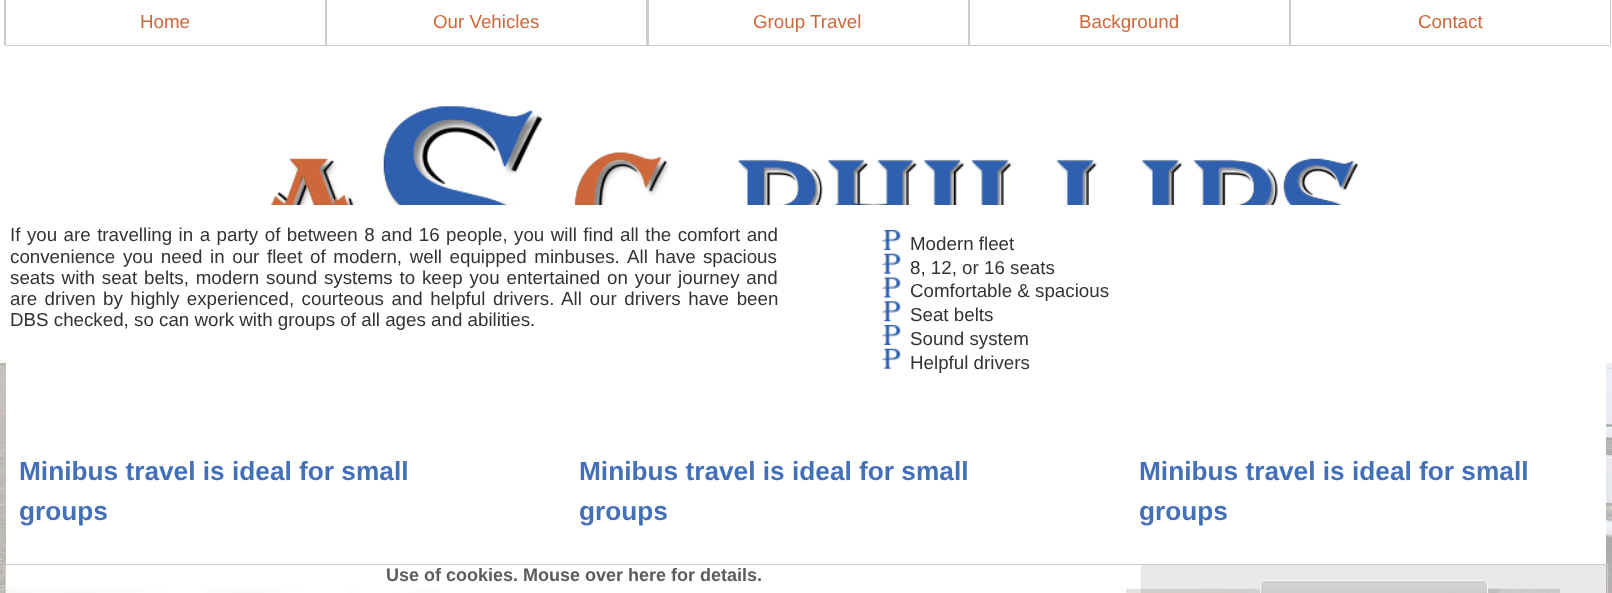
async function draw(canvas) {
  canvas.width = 1612;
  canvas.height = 593;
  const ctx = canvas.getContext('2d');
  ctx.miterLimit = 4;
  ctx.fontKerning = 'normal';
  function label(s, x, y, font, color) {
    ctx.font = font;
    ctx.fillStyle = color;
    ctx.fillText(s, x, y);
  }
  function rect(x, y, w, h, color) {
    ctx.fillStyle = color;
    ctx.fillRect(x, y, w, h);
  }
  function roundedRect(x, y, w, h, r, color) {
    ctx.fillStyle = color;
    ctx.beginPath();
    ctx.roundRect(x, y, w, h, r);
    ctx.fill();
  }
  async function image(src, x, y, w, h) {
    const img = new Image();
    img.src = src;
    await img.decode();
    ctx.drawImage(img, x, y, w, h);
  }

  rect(0, 0, 1612, 593, '#fff');
  await image('assets/img1.png', 0, 363, 1612, 230);
  ctx.strokeStyle = '#ccc';
  ctx.strokeRect(4.5, -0.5, 320, 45);
  ctx.beginPath();
  ctx.rect(5.5, -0.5, 320, 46);
  ctx.fill();
  ctx.stroke();
  label('Home', 140, 28, '18.75px Liberation Sans', '#ce673a');
  ctx.strokeRect(325.5, -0.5, 320, 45);
  rect(327, 0, 319, 45, '#fff');
  ctx.strokeRect(326.5, -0.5, 321, 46);
  label('Our Vehicles', 433, 28, '18.75px Liberation Sans', '#ce673a');
  ctx.strokeRect(646.5, -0.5, 321, 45);
  ctx.fillStyle = '#fff';
  ctx.beginPath();
  ctx.rect(648.5, -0.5, 320, 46);
  ctx.fill();
  ctx.stroke();
  label('Group Travel', 753, 28, '18.75px Liberation Sans', '#ce673a');
  ctx.strokeRect(968.5, -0.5, 320, 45);
  ctx.fillStyle = '#fff';
  ctx.beginPath();
  ctx.rect(969.5, -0.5, 320, 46);
  ctx.fill();
  ctx.stroke();
  label('Background', 1079, 28, '18.75px Liberation Sans', '#ce673a');
  ctx.strokeRect(1289.5, -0.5, 320, 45);
  ctx.fillStyle = '#fff';
  ctx.beginPath();
  ctx.rect(1290.5, -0.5, 320, 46);
  ctx.fill();
  ctx.stroke();
  label('Contact', 1418, 28, '18.75px Liberation Sans', '#ce673a');
  await image('assets/img2.png', 271, 106, 1088, 99);
  rect(6, 363, 1600, 230, '#fff');
  ctx.wordSpacing = '1.25px';
  label('If you are travelling in a party of between 8 and 16 people, you will find all the comfort and', 10, 241, '18.75px Liberation Sans', '#333');
  ctx.wordSpacing = '2.4px';
  label('convenience you need in our fleet of modern, well equipped minbuses.', 10, 263, '18.75px Liberation Sans', '#333');
  ctx.wordSpacing = '2px';
  label('All have spacious', 627, 263, '18.75px Liberation Sans', '#333');
  ctx.wordSpacing = '1.6px';
  label('seats with seat belts, modern sound systems to keep you entertained on your journey and', 10, 284, '18.75px Liberation Sans', '#333');
  ctx.wordSpacing = '2.25px';
  label('are driven by highly experienced, courteous and helpful drivers.', 10, 305, '18.75px Liberation Sans', '#333');
  ctx.wordSpacing = '2.5px';
  label('All our drivers have been', 561, 305, '18.75px Liberation Sans', '#333');
  ctx.wordSpacing = '0px';
  label('DBS checked, so can work with groups of all ages and abilities.', 10, 326, '18.75px Liberation Sans', '#333');
  await image('assets/img3.png', 882, 230, 19, 20);
  label('Modern fleet', 910, 250, '18.75px Liberation Sans', '#333');
  await image('assets/img4.png', 882, 253, 19, 21);
  label('8, 12, or 16 seats', 910, 274, '18.75px Liberation Sans', '#333');
  await image('assets/img5.png', 882, 277, 19, 21);
  label('Comfortable & spacious', 910, 297, '18.75px Liberation Sans', '#333');
  await image('assets/img6.png', 882, 301, 19, 21);
  label('Seat belts', 910, 321, '18.75px Liberation Sans', '#333');
  await image('assets/img3.png', 882, 325, 19, 20);
  label('Sound system', 910, 345, '18.75px Liberation Sans', '#333');
  await image('assets/img4.png', 882, 348, 19, 21);
  label('Helpful drivers', 910, 369, '18.75px Liberation Sans', '#333');
  label('Minibus travel is ideal for small', 19, 480, 'bold 26.25px Liberation Sans', '#4470b7');
  label('groups', 19, 520, 'bold 26.25px Liberation Sans', '#4470b7');
  await image('assets/img7.png', 6, 588, 434, 5);
  label('Minibus travel is ideal for small', 579, 480, 'bold 26.25px Liberation Sans', '#4470b7');
  label('groups', 579, 520, 'bold 26.25px Liberation Sans', '#4470b7');
  await image('assets/img8.png', 827, 589, 170, 4);
  label('Minibus travel is ideal for small', 1139, 480, 'bold 26.25px Liberation Sans', '#4470b7');
  label('groups', 1139, 520, 'bold 26.25px Liberation Sans', '#4470b7');
  await image('assets/img9.png', 1126, 588, 434, 5);
  ctx.strokeRect(5.5, 564.5, 1602, 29);
  rect(6, 588, 1135, 5, '#ffffffcc');
  label('Use of cookies. Mouse over here for details.', 386, 581, 'bold 18px Liberation Sans', '#5c5c5c');
  rect(1141, 565, 465, 28, '#e4e4e4cc');
  roundedRect(1260, 580, 228, 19, 6, '#cccccccc');
  ctx.beginPath();
  ctx.roundRect(1260.5, 580.5, 227, 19, 5.5);
  ctx.strokeStyle = '#ffffffcc';
  ctx.stroke();
}

draw(document.querySelector('canvas'));
